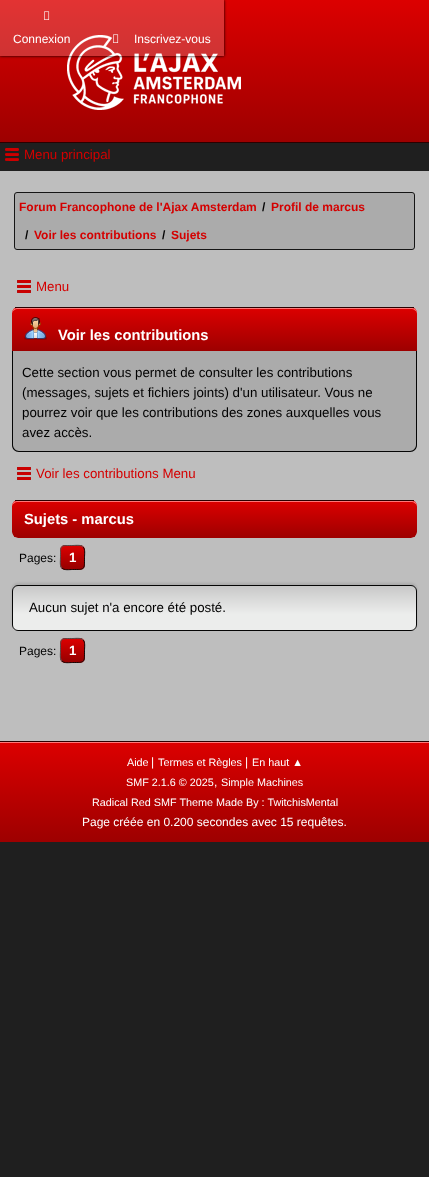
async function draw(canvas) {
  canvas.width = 429;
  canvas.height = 1177;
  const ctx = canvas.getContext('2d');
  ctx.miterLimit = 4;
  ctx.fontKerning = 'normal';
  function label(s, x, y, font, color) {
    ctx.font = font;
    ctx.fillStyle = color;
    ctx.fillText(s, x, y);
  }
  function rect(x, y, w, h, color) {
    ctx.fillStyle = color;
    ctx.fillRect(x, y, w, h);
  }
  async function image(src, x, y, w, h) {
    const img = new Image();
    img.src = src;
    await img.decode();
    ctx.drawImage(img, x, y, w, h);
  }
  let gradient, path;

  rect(0, 0, 429, 1177, '#1f1f1f');
  gradient = ctx.createLinearGradient(215, 0, 215, 142);
  gradient.addColorStop(0, '#dc0000');
  gradient.addColorStop(1, '#9d0000');
  ctx.fillStyle = gradient;
  ctx.fillRect(0, 0, 429, 142);
  rect(0, 142, 429, 1, '#2b0000');
  await image('assets/img1.png', 67, 35, 174, 75);
  rect(0, 171, 429, 570, '#bebebe');
  ctx.save();
  path = new Path2D('M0 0H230V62H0ZM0 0H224V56H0Z');
  ctx.clip(path, 'evenodd');
  ctx.fillStyle = '#000';
  ctx.filter = 'blur(1.5px)';
  ctx.beginPath();
  ctx.rect(0, 0, 224, 56);
  ctx.fill();
  ctx.filter = 'none';
  ctx.restore();
  rect(0, 0, 224, 56, '#ffffff33');
  await image('assets/img2.png', 44, 11, 6, 9);
  label('Connexion', 13, 43, '12px Liberation Sans', '#fff');
  await image('assets/img3.png', 113, 34, 6, 9);
  label('Inscrivez-vous', 134, 43, '12px Liberation Sans', '#fff');
  ctx.fillStyle = '#ababab';
  ctx.beginPath();
  ctx.roundRect(14.5, 192.5, 400, 57, 2.5);
  ctx.fill();
  ctx.strokeStyle = '#151515';
  ctx.stroke();
  label('Forum Francophone de l\'Ajax Amsterdam', 19, 211, 'bold 12px Liberation Sans', '#d40000');
  label('/', 262, 211, 'bold 12px Liberation Sans', '#000');
  label('Profil de marcus', 271, 211, 'bold 12px Liberation Sans', '#d40000');
  label('/', 25, 239, 'bold 12px Liberation Sans', '#000');
  label('Voir les contributions', 34, 239, 'bold 12px Liberation Sans', '#d40000');
  label('/', 162, 239, 'bold 12px Liberation Sans', '#000');
  label('Sujets', 171, 239, 'bold 12px Liberation Sans', '#d40000');
  await image('assets/img4.png', 17, 280, 14, 13);
  label('Menu', 36, 291, '13.3px Liberation Sans', '#d40000');
  ctx.save();
  ctx.beginPath();
  ctx.roundRect(12, 307, 405, 44, [6, 6, 0, 0]);
  ctx.clip();
  gradient = ctx.createLinearGradient(215, 308, 215, 351);
  gradient.addColorStop(0, '#dc0000');
  gradient.addColorStop(1, '#9d0000');
  ctx.fillStyle = gradient;
  ctx.fillRect(12, 308, 405, 43);
  ctx.restore();
  ctx.fillStyle = '#f77';
  path = new Path2D('M18 309H411C414 309 417 311 417 314C417 310 415 308 411 308H18C14 308 12 310 12 314C12 311 15 309 18 309Z');
  ctx.fill(path);
  rect(15, 307, 399, 1, '#2b0000');
  await image('assets/img5.png', 24, 317, 23, 23);
  label('Voir les contributions', 58, 340, 'bold 14.75px Liberation Sans', '#fff');
  ctx.fillStyle = '#ababab';
  ctx.beginPath();
  ctx.roundRect(12, 351, 405, 101, [0, 0, 7, 7]);
  ctx.fill();
  ctx.fillStyle = '#050505';
  path = new Path2D('M12 351H417V445C417 449 414 452 410 452H19C15 452 12 449 12 445ZM13 351H416V445C416 448 413 451 410 451H19C16 451 13 448 13 445Z');
  ctx.fill(path, 'evenodd');
  label('Cette section vous permet de consulter les contributions', 22, 377, '13.3px Liberation Sans', '#000');
  label('(messages, sujets et fichiers joints) d\'un utilisateur. Vous ne', 22, 397, '13.3px Liberation Sans', '#000');
  label('pourrez voir que les contributions des zones auxquelles vous', 22, 417, '13.3px Liberation Sans', '#000');
  label('avez accès.', 22, 437, '13.3px Liberation Sans', '#000');
  await image('assets/img4.png', 17, 467, 14, 13);
  label('Voir les contributions Menu', 36, 478, '13.3px Liberation Sans', '#d40000');
  ctx.save();
  ctx.beginPath();
  ctx.roundRect(12, 500, 405, 38, 6);
  ctx.clip();
  gradient = ctx.createLinearGradient(215, 501, 215, 538);
  gradient.addColorStop(0, '#dc0000');
  gradient.addColorStop(1, '#9d0000');
  ctx.fillStyle = gradient;
  ctx.beginPath();
  ctx.roundRect(12, 501, 405, 37, [0, 0, 6, 6]);
  ctx.fill();
  ctx.restore();
  ctx.fillStyle = '#f77';
  path = new Path2D('M18 502H411C414 502 417 504 417 507C417 503 415 501 411 501H18C14 501 12 503 12 507C12 504 15 502 18 502Z');
  ctx.fill(path);
  rect(15, 500, 399, 1, '#2b0000');
  label('Sujets - marcus', 24, 524, 'bold 14.75px Liberation Sans', '#fff');
  label('Pages:', 19, 562, '12px Liberation Sans', '#000');
  ctx.save();
  ctx.beginPath();
  ctx.roundRect(60, 545, 25, 25, 5);
  ctx.clip();
  gradient = ctx.createLinearGradient(73, 546, 73, 569);
  gradient.addColorStop(0, '#dc0000');
  gradient.addColorStop(0.9, '#9d0000');
  ctx.fillStyle = gradient;
  ctx.fillRect(60, 546, 25, 23);
  gradient = ctx.createLinearGradient(73, 569, 73, 592);
  gradient.addColorStop(0, '#dc0000');
  gradient.addColorStop(0.9, '#9d0000');
  ctx.fillStyle = gradient;
  ctx.fillRect(60, 569, 25, 1);
  ctx.restore();
  path = new Path2D('M83 547C85.5 549 84.5 554.5 84.5 557.5C84.5 570 85 569.5 72.5 569.5C69.5 569.5 64 570.5 62 568');
  ctx.strokeStyle = '#0b0b0b';
  ctx.stroke(path);
  ctx.save();
  ctx.beginPath();
  ctx.roundRect(60, 545, 25, 25, 5);
  ctx.clip();
  gradient = ctx.createLinearGradient(73, 523, 73, 546);
  gradient.addColorStop(0, '#dc0000');
  gradient.addColorStop(0.9, '#9d0000');
  ctx.fillStyle = gradient;
  ctx.fillRect(60, 545, 25, 1);
  ctx.restore();
  path = new Path2D('M62 568C59.5 566 60.5 560.5 60.5 557.5C60.5 545 60 545.5 72.5 545.5C75.5 545.5 81 544.5 83 547');
  ctx.strokeStyle = '#555';
  ctx.stroke(path);
  label('1', 69, 562, 'bold 13.3px Liberation Sans', '#fff');
  ctx.fillStyle = '#0000001a';
  ctx.filter = 'blur(1px)';
  ctx.beginPath();
  ctx.roundRect(12, 583, 405, 46, 6);
  ctx.fill();
  ctx.filter = 'none';
  await image('assets/img6.png', 12, 586, 405, 45);
  ctx.beginPath();
  ctx.roundRect(12.5, 585.5, 404, 45, 5.5);
  ctx.strokeStyle = '#050505';
  ctx.stroke();
  label('Aucun sujet n\'a encore été posté.', 29, 612, '13.3px Liberation Sans', '#000');
  label('Pages:', 19, 655, '12px Liberation Sans', '#000');
  ctx.save();
  ctx.beginPath();
  ctx.roundRect(60, 638, 25, 25, 5);
  ctx.clip();
  gradient = ctx.createLinearGradient(73, 639, 73, 662);
  gradient.addColorStop(0, '#dc0000');
  gradient.addColorStop(0.9, '#9d0000');
  ctx.fillStyle = gradient;
  ctx.fillRect(60, 639, 25, 23);
  gradient = ctx.createLinearGradient(73, 662, 73, 685);
  gradient.addColorStop(0, '#dc0000');
  gradient.addColorStop(0.9, '#9d0000');
  ctx.fillStyle = gradient;
  ctx.fillRect(60, 662, 25, 1);
  ctx.restore();
  path = new Path2D('M83 640C85.5 642 84.5 647.5 84.5 650.5C84.5 663 85 662.5 72.5 662.5C69.5 662.5 64 663.5 62 661');
  ctx.strokeStyle = '#0b0b0b';
  ctx.stroke(path);
  ctx.save();
  ctx.beginPath();
  ctx.roundRect(60, 638, 25, 25, 5);
  ctx.clip();
  gradient = ctx.createLinearGradient(73, 616, 73, 639);
  gradient.addColorStop(0, '#dc0000');
  gradient.addColorStop(0.9, '#9d0000');
  ctx.fillStyle = gradient;
  ctx.fillRect(60, 638, 25, 1);
  ctx.restore();
  path = new Path2D('M62 661C59.5 659 60.5 653.5 60.5 650.5C60.5 638 60 638.5 72.5 638.5C75.5 638.5 81 637.5 83 640');
  ctx.strokeStyle = '#555';
  ctx.stroke(path);
  label('1', 69, 655, 'bold 13.3px Liberation Sans', '#fff');
  gradient = ctx.createLinearGradient(215, 742, 215, 842);
  gradient.addColorStop(0, '#dc0000');
  gradient.addColorStop(1, '#9d0000');
  ctx.fillStyle = gradient;
  ctx.fillRect(0, 743, 429, 99);
  rect(0, 742, 429, 1, '#f77');
  rect(0, 741, 429, 1, '#2b0000');
  label('Aide', 127, 766, '10.8px Liberation Sans', '#fff');
  label('|', 151, 766, '12px Liberation Sans', '#fff');
  label('Termes et Règles', 158, 766, '10.8px Liberation Sans', '#fff');
  label('|', 245, 766, '12px Liberation Sans', '#fff');
  label('En haut ▲', 252, 766, '10.8px Liberation Sans', '#fff');
  label('SMF 2.1.6 © 2025', 126, 786, '10.8px Liberation Sans', '#fff');
  label(',', 214, 786, '12px Liberation Sans', '#fff');
  label('Simple Machines', 221, 786, '10.8px Liberation Sans', '#fff');
  label('Radical Red SMF Theme Made By : TwitchisMental', 92, 806, '10.8px Liberation Sans', '#fff');
  label('Page créée en 0.200 secondes avec 15 requêtes.', 82, 826, '12px Liberation Sans', '#fff');
  await image('assets/img7.png', 5, 148, 14, 13);
  label('Menu principal', 24, 159, '13.3px Liberation Sans', '#d40000');
}

draw(document.querySelector('canvas'));
